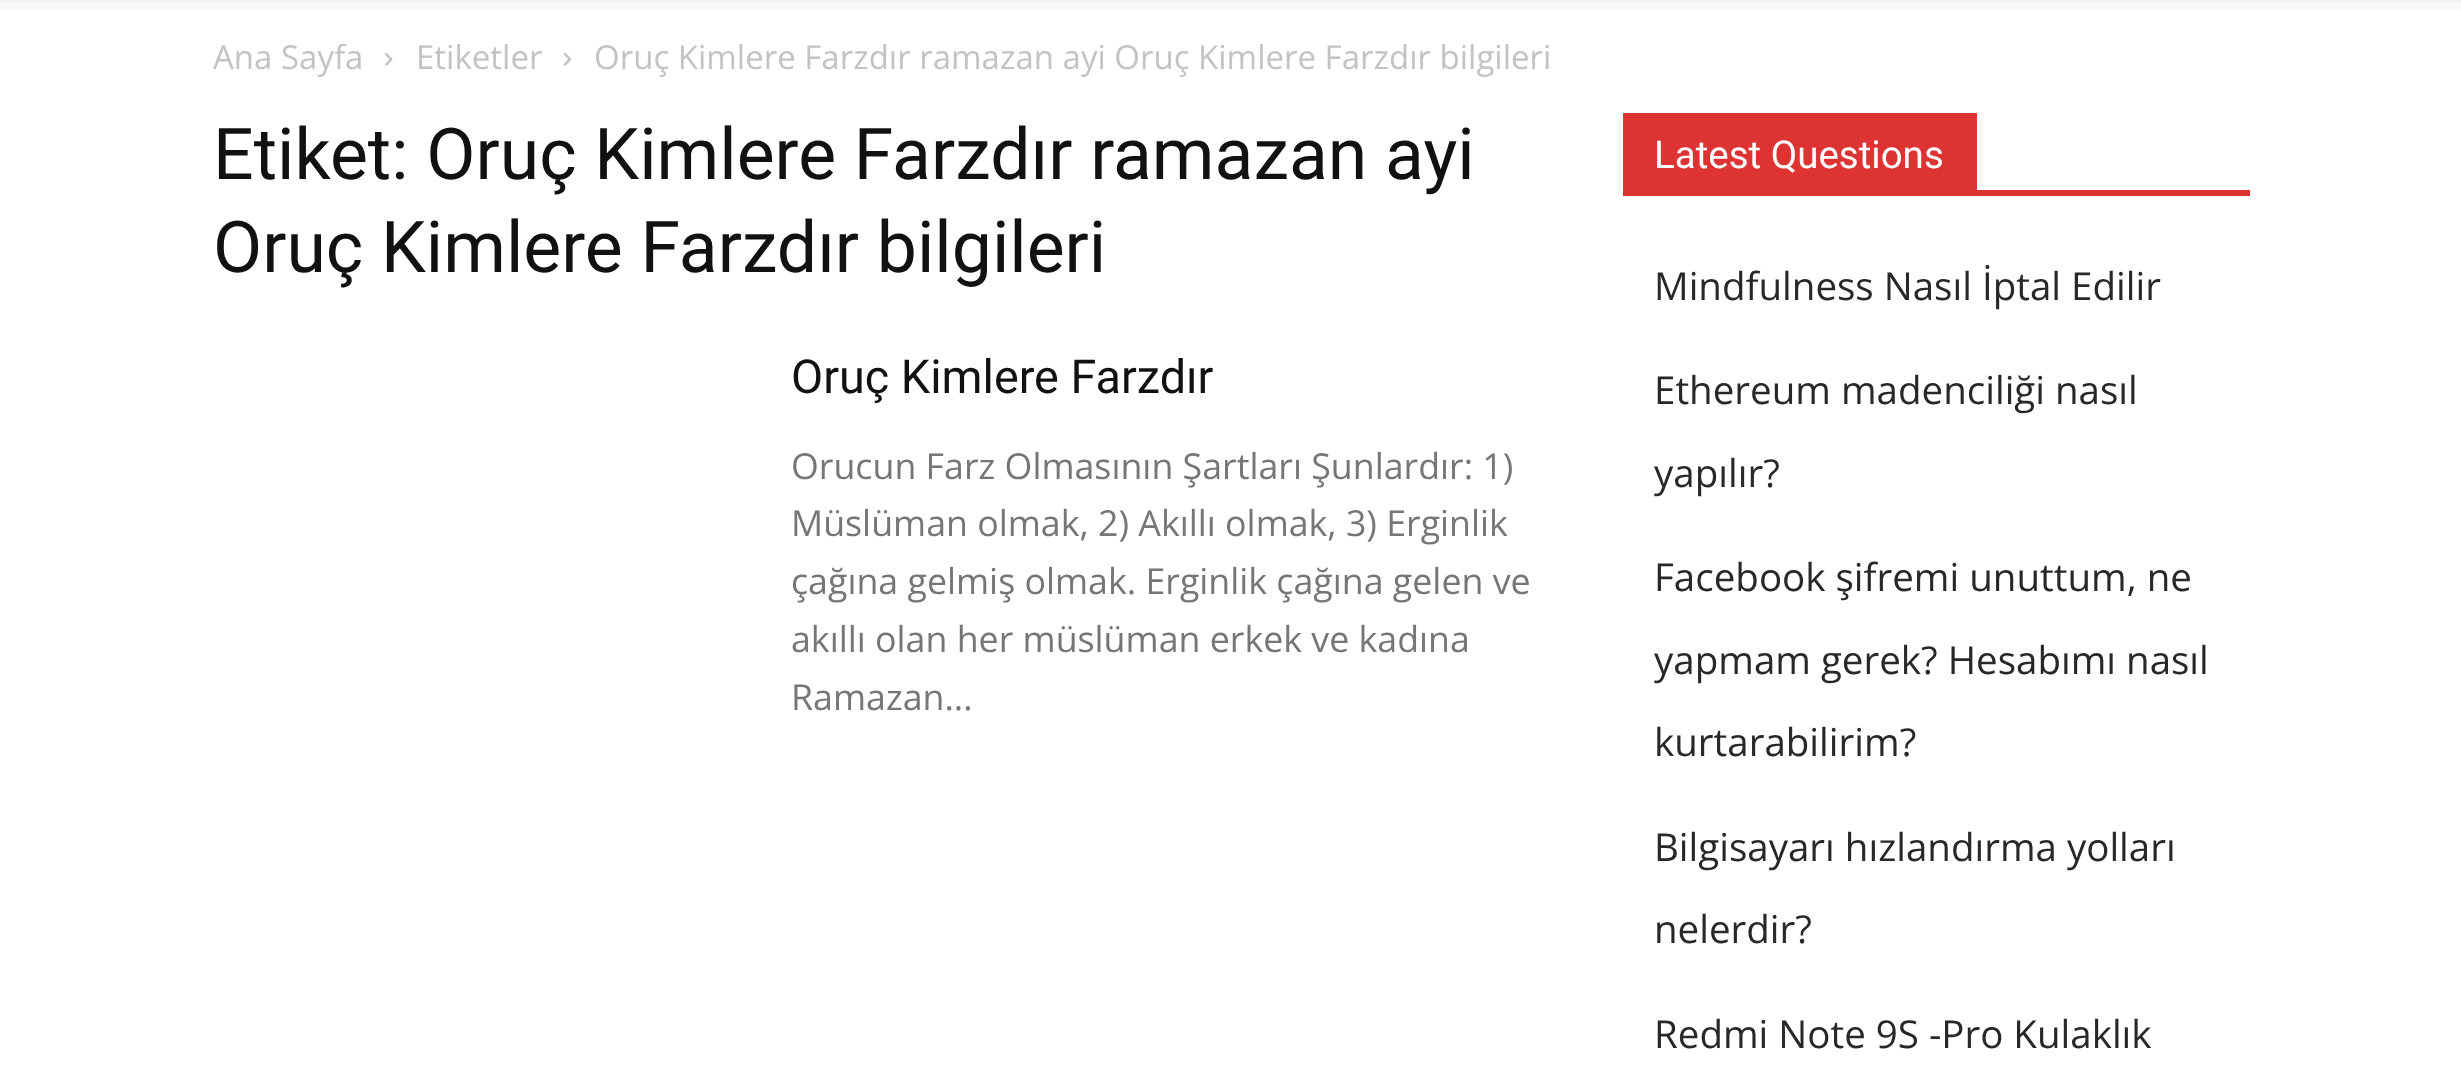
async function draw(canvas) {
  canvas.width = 2461;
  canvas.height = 1087;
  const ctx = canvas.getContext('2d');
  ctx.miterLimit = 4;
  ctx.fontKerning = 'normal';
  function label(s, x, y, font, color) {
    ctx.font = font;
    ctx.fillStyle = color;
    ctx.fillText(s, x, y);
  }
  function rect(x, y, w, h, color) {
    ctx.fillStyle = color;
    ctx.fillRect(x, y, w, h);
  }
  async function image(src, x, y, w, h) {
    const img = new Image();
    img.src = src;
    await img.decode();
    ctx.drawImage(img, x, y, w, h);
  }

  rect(0, 0, 2461, 1087, '#fff');
  await image('assets/img1.png', 0, 0, 2461, 10);
  label('Ana Sayfa', 213, 69, '33px Open Sans', '#c3c3c3');
  await image('assets/img2.png', 385, 53, 8, 13);
  label('Etiketler', 416, 69, '33px Open Sans', '#c3c3c3');
  await image('assets/img3.png', 563, 53, 9, 13);
  label('Oruç Kimlere Farzdır ramazan ayi Oruç Kimlere Farzdır bilgileri', 594, 69, '33px Open Sans', '#c3c3c3');
  label('Etiket: Oruç Kimlere Farzdır ramazan ayi', 213, 179, '71.5px Roboto', '#111');
  label('Oruç Kimlere Farzdır bilgileri', 213, 272, '71.5px Roboto', '#111');
  label('Oruç Kimlere Farzdır', 791, 393, '46.75px Roboto', '#111');
  label('Orucun Farz Olmasının Şartları Şunlardır: 1)', 791, 479, '35.75px Open Sans', '#767676');
  label('Müslüman olmak, 2) Akıllı olmak, 3) Erginlik', 791, 536, '35.75px Open Sans', '#767676');
  label('çağına gelmiş olmak. Erginlik çağına gelen ve', 791, 594, '35.75px Open Sans', '#767676');
  label('akıllı olan her müslüman erkek ve kadına', 791, 652, '35.75px Open Sans', '#767676');
  label('Ramazan...', 791, 710, '35.75px Open Sans', '#767676');
  rect(1623, 190, 627, 6, '#d33');
  rect(1623, 113, 354, 77, '#d33');
  label('Latest Questions', 1654, 168, '38.5px Roboto', '#fff');
  label('Mindfulness Nasıl İptal Edilir', 1654, 300, '38.5px Open Sans', '#272829');
  label('Ethereum madenciliği nasıl', 1654, 404, '38.5px Open Sans', '#272829');
  label('yapılır?', 1654, 487, '38.5px Open Sans', '#272829');
  label('Facebook şifremi unuttum, ne', 1654, 591, '38.5px Open Sans', '#272829');
  label('yapmam gerek? Hesabımı nasıl', 1654, 674, '38.5px Open Sans', '#272829');
  label('kurtarabilirim?', 1654, 756, '38.5px Open Sans', '#272829');
  label('Bilgisayarı hızlandırma yolları', 1654, 861, '38.5px Open Sans', '#272829');
  label('nelerdir?', 1654, 943, '38.5px Open Sans', '#272829');
  label('Redmi Note 9S -Pro Kulaklık', 1654, 1048, '38.5px Open Sans', '#272829');
}

draw(document.querySelector('canvas'));
